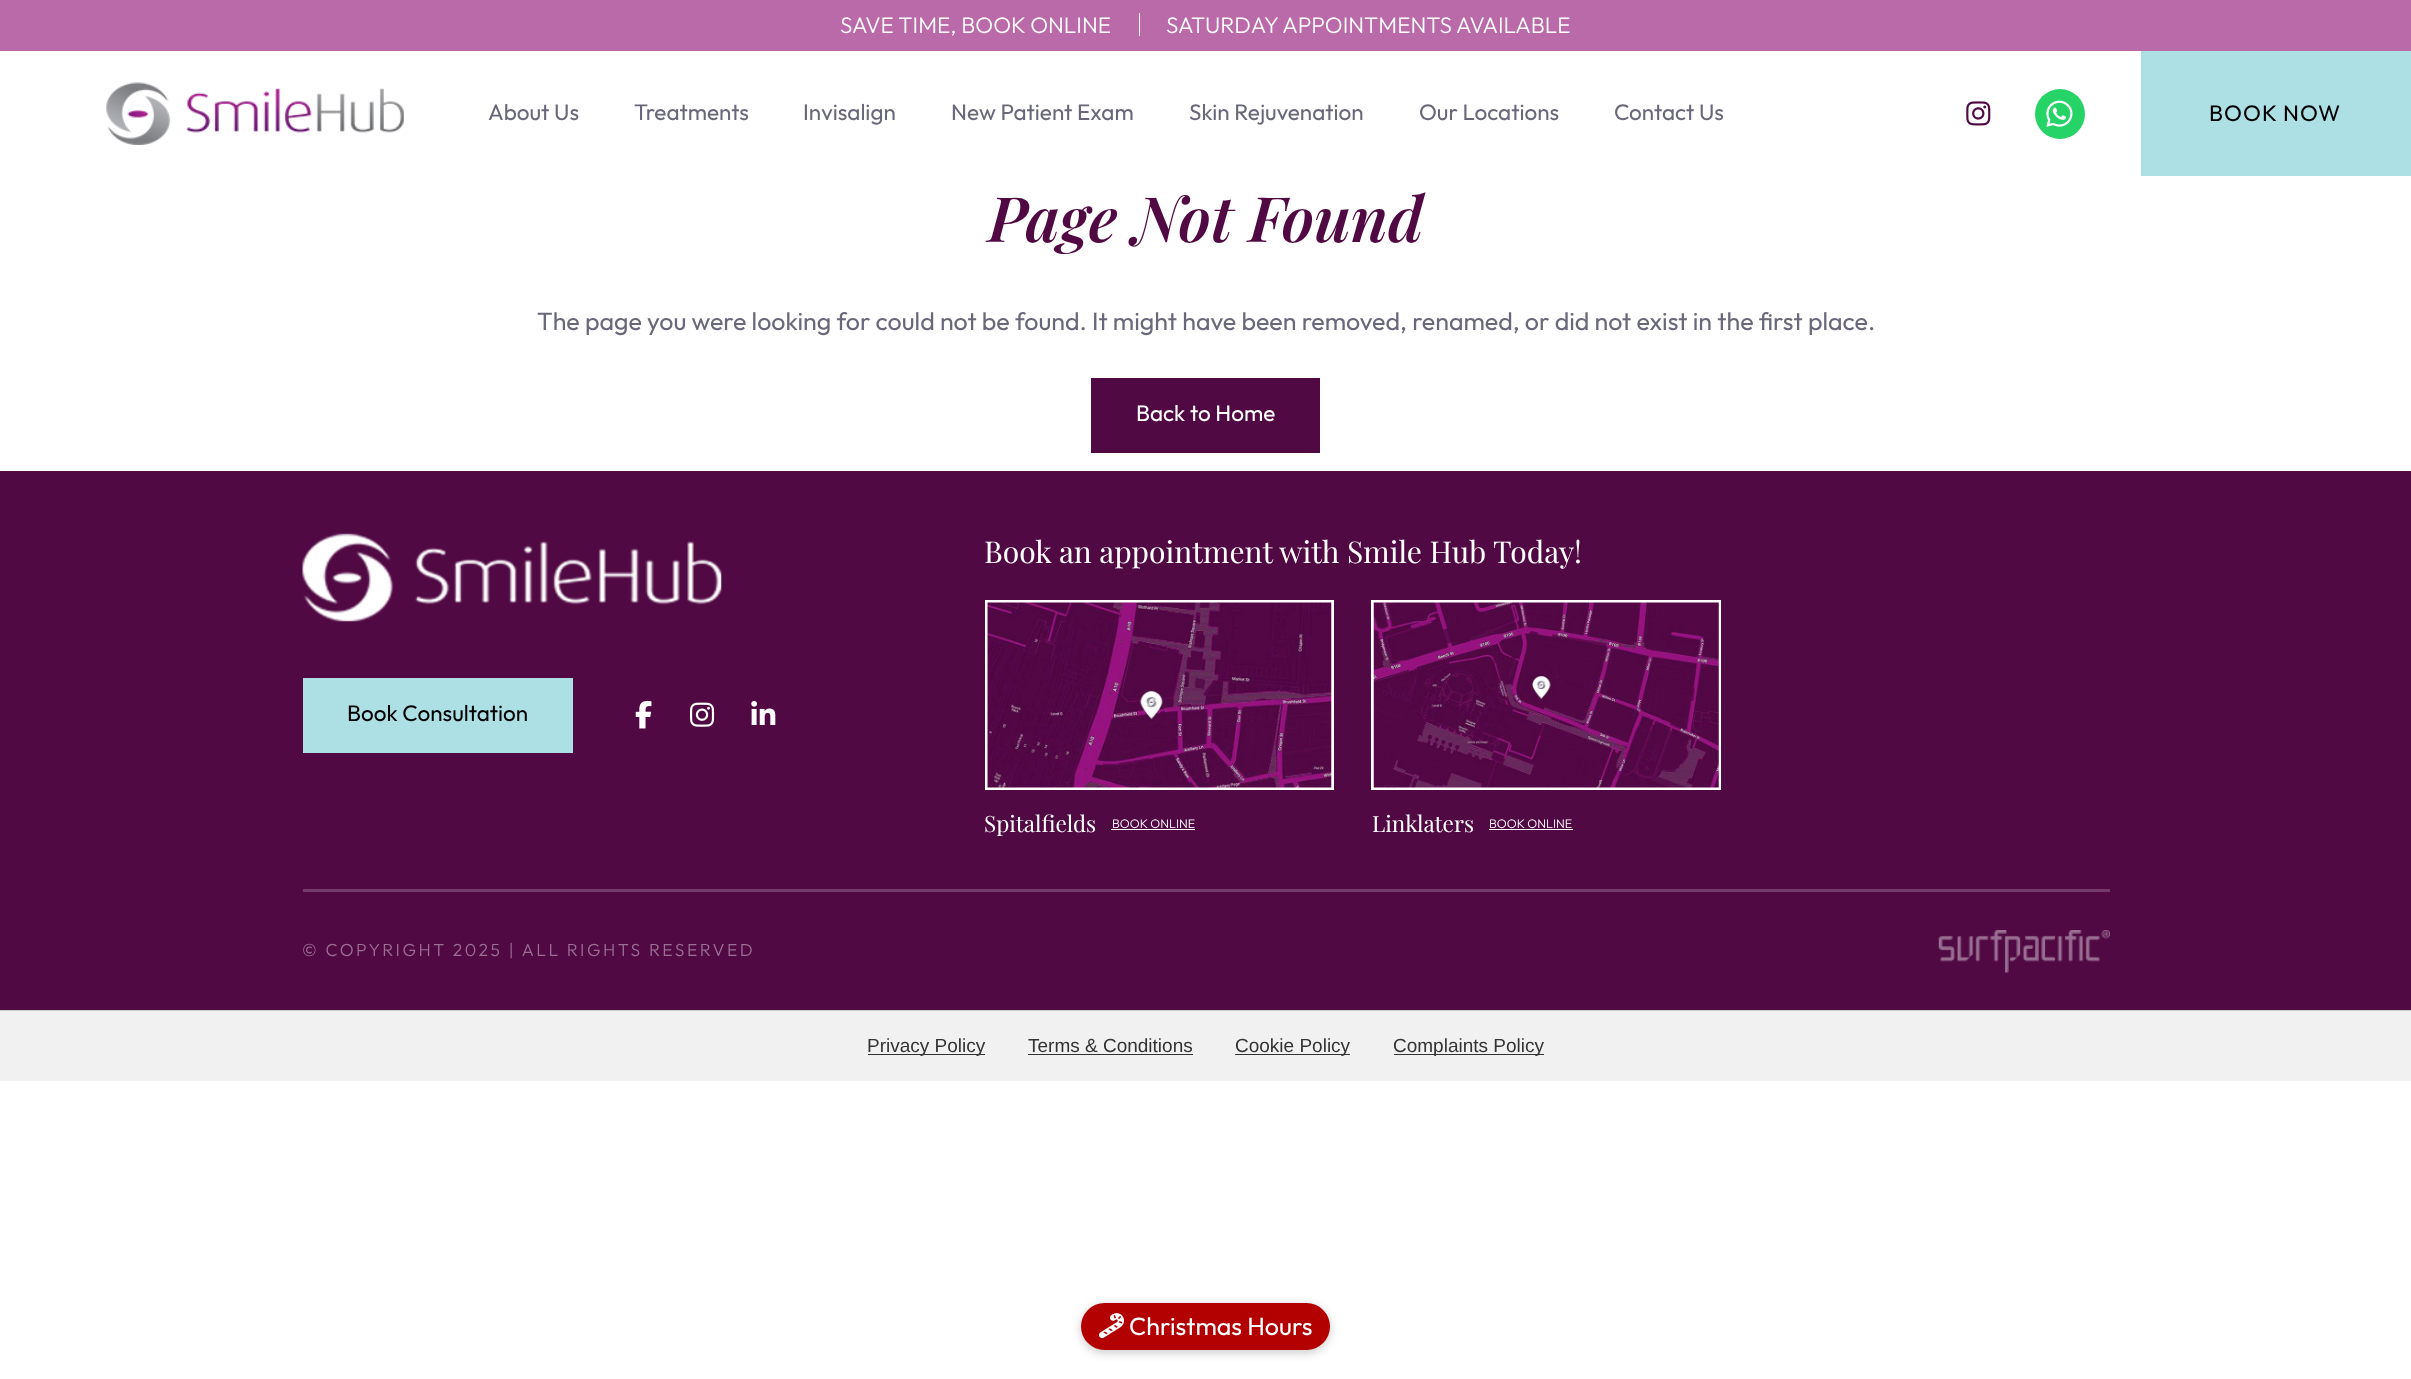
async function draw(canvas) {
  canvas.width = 2411;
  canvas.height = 1379;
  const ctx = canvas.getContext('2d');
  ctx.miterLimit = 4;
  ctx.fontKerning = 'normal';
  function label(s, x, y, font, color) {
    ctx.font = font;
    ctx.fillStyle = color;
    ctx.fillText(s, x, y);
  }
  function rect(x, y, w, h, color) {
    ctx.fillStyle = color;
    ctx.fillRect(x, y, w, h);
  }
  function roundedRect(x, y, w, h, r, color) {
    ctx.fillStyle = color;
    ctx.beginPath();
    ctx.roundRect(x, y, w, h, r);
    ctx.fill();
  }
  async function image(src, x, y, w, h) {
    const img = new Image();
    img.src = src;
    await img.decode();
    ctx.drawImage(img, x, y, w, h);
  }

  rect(0, 0, 2411, 1379, '#fff');
  rect(0, 0, 2411, 51, '#ba6aa8');
  label('SAVE TIME, BOOK ONLINE', 840, 33, '300 22.5px Outfit', '#fff');
  rect(1139, 13, 1, 23, '#fff');
  label('SATURDAY APPOINTMENTS AVAILABLE', 1166, 33, '300 22.5px Outfit', '#fff');
  await image('assets/img1.png', 106, 82, 298, 63);
  label('About Us', 488, 120, '22.5px Outfit', '#69687b');
  label('Treatments', 634, 120, '22.5px Outfit', '#69687b');
  label('Invisalign', 803, 120, '22.5px Outfit', '#69687b');
  label('New Patient Exam', 951, 120, '22.5px Outfit', '#69687b');
  label('Skin Rejuvenation', 1189, 120, '22.5px Outfit', '#69687b');
  label('Our Locations', 1419, 120, '22.5px Outfit', '#69687b');
  label('Contact Us', 1614, 120, '22.5px Outfit', '#69687b');
  await image('assets/img2.png', 1966, 101, 25, 25);
  ctx.fillStyle = '#25d366';
  ctx.beginPath();
  ctx.arc(2060, 114, 25, 0, 2 * Math.PI);
  ctx.fill();
  await image('assets/img3.png', 2046, 100, 27, 27);
  rect(2141, 51, 270, 125, '#ade0e5');
  ctx.letterSpacing = '1px';
  label('BOOK NOW', 2209, 121, '22.5px Outfit', '#000');
  ctx.letterSpacing = '0px';
  label('Page Not Found', 988, 242, 'italic 600 62.5px Playfair Display', '#510944');
  label('The page you were looking for could not be found. It might have been removed, renamed, or did not exist in the first place.', 537, 330, '25px Outfit', '#69687b');
  rect(1091, 378, 229, 75, '#510944');
  label('Back to Home', 1136, 421, '22.5px Outfit', '#fff');
  rect(0, 471, 2411, 539, '#510944');
  await image('assets/img4.png', 302, 533, 420, 89);
  rect(303, 678, 270, 75, '#ade0e5');
  label('Book Consultation', 347, 721, '22.5px Outfit', '#000');
  await image('assets/img5.png', 635, 700, 17, 29);
  await image('assets/img6.png', 690, 702, 25, 25);
  await image('assets/img7.png', 751, 700, 25, 25);
  label('Book an appointment with Smile Hub Today!', 984, 563, '30px Playfair Display', '#fff');
  rect(985, 600, 349, 190, '#fff');
  await image('assets/img8.png', 987, 602, 345, 186);
  label('Spitalfields', 984, 832, '22.5px Playfair Display', '#fff');
  label('BOOK ONLINE', 1112, 828, '300 12.5px Outfit', '#fff');
  rect(1111, 829, 84, 1, '#fff');
  rect(1371, 600, 350, 190, '#fff');
  await image('assets/img9.png', 1373, 602, 346, 186);
  label('Linklaters', 1372, 832, '22.5px Playfair Display', '#fff');
  label('BOOK ONLINE', 1489, 828, '300 12.5px Outfit', '#fff');
  rect(1489, 829, 84, 1, '#fff');
  rect(303, 889, 1807, 3, '#743a69');
  ctx.letterSpacing = '2.5px';
  label('© COPYRIGHT 2025 | ALL RIGHTS RESERVED', 302, 956, '300 17.5px Outfit', '#9a7093');
  await image('assets/img10.png', 1938, 930, 172, 43);
  rect(0, 1011, 2411, 70, '#f1f1f1');
  rect(0, 1010, 2411, 1, '#ccc');
  rect(868, 1054, 117, 1, '#333');
  ctx.letterSpacing = '0px';
  label('Privacy Policy', 867, 1052, '19px Liberation Sans', '#333');
  label('Terms & Conditions', 1028, 1052, '19px Liberation Sans', '#333');
  rect(1028, 1054, 165, 1, '#333');
  rect(1235, 1054, 115, 1, '#333');
  label('Cookie Policy', 1235, 1052, '19px Liberation Sans', '#333');
  rect(1394, 1054, 150, 1, '#333');
  label('Complaints Policy', 1393, 1052, '19px Liberation Sans', '#333');
  ctx.fillStyle = '#00000033';
  ctx.filter = 'blur(5px)';
  ctx.beginPath();
  ctx.roundRect(1081, 1305, 249, 48, 24);
  ctx.fill();
  ctx.filter = 'none';
  roundedRect(1081, 1303, 249, 47, 23.5, '#b30000');
  await image('assets/img11.png', 1099, 1313, 25, 26);
  label('Christmas Hours', 1129, 1335, '25px Outfit', '#fff');
}

draw(document.querySelector('canvas'));
